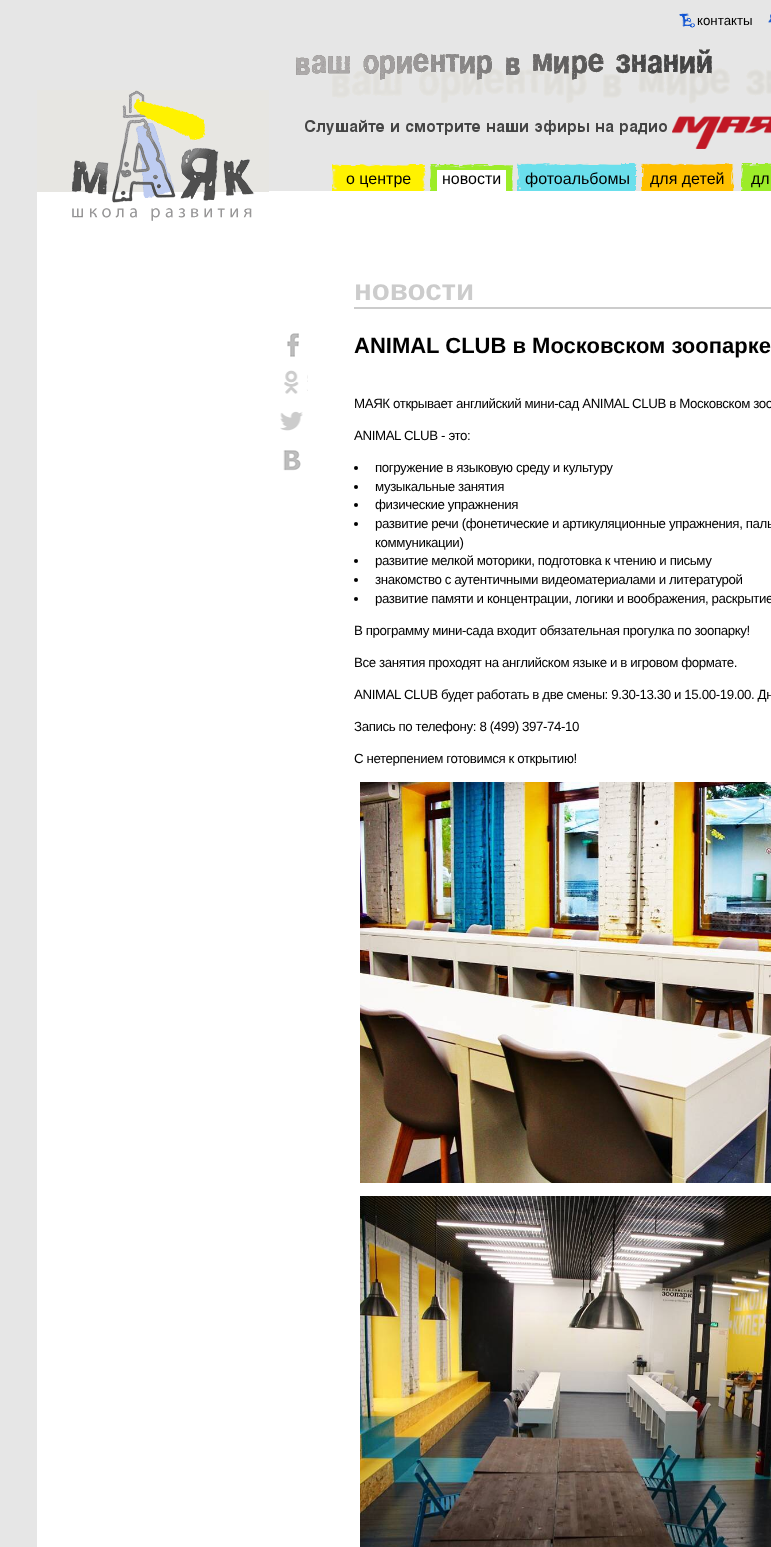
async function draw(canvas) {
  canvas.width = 771;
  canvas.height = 1547;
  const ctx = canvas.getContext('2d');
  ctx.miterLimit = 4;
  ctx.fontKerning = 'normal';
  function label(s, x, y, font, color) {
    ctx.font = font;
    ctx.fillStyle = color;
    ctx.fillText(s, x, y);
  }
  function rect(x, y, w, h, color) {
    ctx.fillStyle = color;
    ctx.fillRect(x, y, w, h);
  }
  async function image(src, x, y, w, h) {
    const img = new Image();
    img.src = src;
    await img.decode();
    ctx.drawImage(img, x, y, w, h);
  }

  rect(0, 0, 771, 1547, '#e6e6e6');
  rect(37, 191, 734, 62, '#fff');
  await image('assets/img1.png', 37, 90, 232, 131);
  await image('assets/img2.png', 679, 13, 16, 15);
  label('контакты', 697, 25, '13.3px Liberation Sans', '#000');
  await image('assets/img3.png', 768, 14, 3, 9);
  await image('assets/img4.png', 296, 49, 475, 100);
  await image('assets/img5.png', 332, 164, 94, 27);
  label('о центре', 346, 184, '16px Liberation Sans', '#000');
  await image('assets/img6.png', 430, 164, 83, 27);
  rect(437, 170, 69, 21, '#fff');
  label('новости', 442, 184, '16px Liberation Sans', '#000');
  await image('assets/img7.png', 517, 163, 120, 28);
  label('фотоальбомы', 525, 184, '16px Liberation Sans', '#000');
  await image('assets/img8.png', 641, 163, 93, 28);
  label('для детей', 650, 184, '16px Liberation Sans', '#000');
  await image('assets/img9.png', 741, 163, 30, 28);
  label('дл', 751, 184, '16px Liberation Sans', '#000');
  rect(37, 253, 734, 1294, '#fff');
  await image('assets/img10.png', 287, 333, 12, 24);
  await image('assets/img11.png', 284, 370, 24, 24);
  await image('assets/img12.png', 280, 411, 23, 20);
  await image('assets/img13.png', 283, 450, 18, 21);
  rect(354, 307, 417, 2, '#ccc');
  label('новости', 354, 300, 'bold 29.5px Liberation Sans', '#ccc');
  label('ANIMAL CLUB в Московском зоопарке', 354, 353, 'bold 22px Liberation Sans', '#000');
  ctx.letterSpacing = '-0.4px';
  label('МАЯК открывает английский мини-сад ANIMAL CLUB в Московском зоо', 354, 408, '13.3px Liberation Sans', '#000');
  label('ANIMAL CLUB - это:', 354, 440, '13.3px Liberation Sans', '#000');
  ctx.beginPath();
  ctx.arc(356, 468, 2, 0, 2 * Math.PI);
  ctx.fill();
  label('погружение в языковую среду и культуру', 375, 472, '13.3px Liberation Sans', '#000');
  ctx.beginPath();
  ctx.arc(356, 487, 2, 0, 2 * Math.PI);
  ctx.fill();
  label('музыкальные занятия', 375, 491, '13.3px Liberation Sans', '#000');
  ctx.beginPath();
  ctx.arc(356, 505, 2, 0, 2 * Math.PI);
  ctx.fill();
  label('физические упражнения', 375, 509, '13.3px Liberation Sans', '#000');
  ctx.beginPath();
  ctx.arc(356, 524, 2, 0, 2 * Math.PI);
  ctx.fill();
  label('развитие речи (фонетические и артикуляционные упражнения, паль', 375, 528, '13.3px Liberation Sans', '#000');
  label('коммуникации)', 375, 547, '13.3px Liberation Sans', '#000');
  ctx.beginPath();
  ctx.arc(356, 561, 2, 0, 2 * Math.PI);
  ctx.fill();
  label('развитие мелкой моторики, подготовка к чтению и письму', 375, 565, '13.3px Liberation Sans', '#000');
  ctx.beginPath();
  ctx.arc(356, 580, 2, 0, 2 * Math.PI);
  ctx.fill();
  label('знакомство с аутентичными видеоматериалами и литературой', 375, 584, '13.3px Liberation Sans', '#000');
  ctx.beginPath();
  ctx.arc(356, 599, 2, 0, 2 * Math.PI);
  ctx.fill();
  label('развитие памяти и концентрации, логики и воображения, раскрытие', 375, 603, '13.3px Liberation Sans', '#000');
  label('В программу мини-сада входит обязательная прогулка по зоопарку!', 354, 635, '13.3px Liberation Sans', '#000');
  label('Все занятия проходят на английском языке и в игровом формате.', 354, 667, '13.3px Liberation Sans', '#000');
  label('ANIMAL CLUB будет работать в две смены: 9.30-13.30 и 15.00-19.00. Дн', 354, 699, '13.3px Liberation Sans', '#000');
  label('Запись по телефону: 8 (499) 397-74-10', 354, 731, '13.3px Liberation Sans', '#000');
  label('С нетерпением готовимся к открытию!', 354, 763, '13.3px Liberation Sans', '#000');
  await image('assets/img14.png', 360, 782, 411, 401);
  await image('assets/img15.png', 360, 1196, 411, 351);
}

draw(document.querySelector('canvas'));
